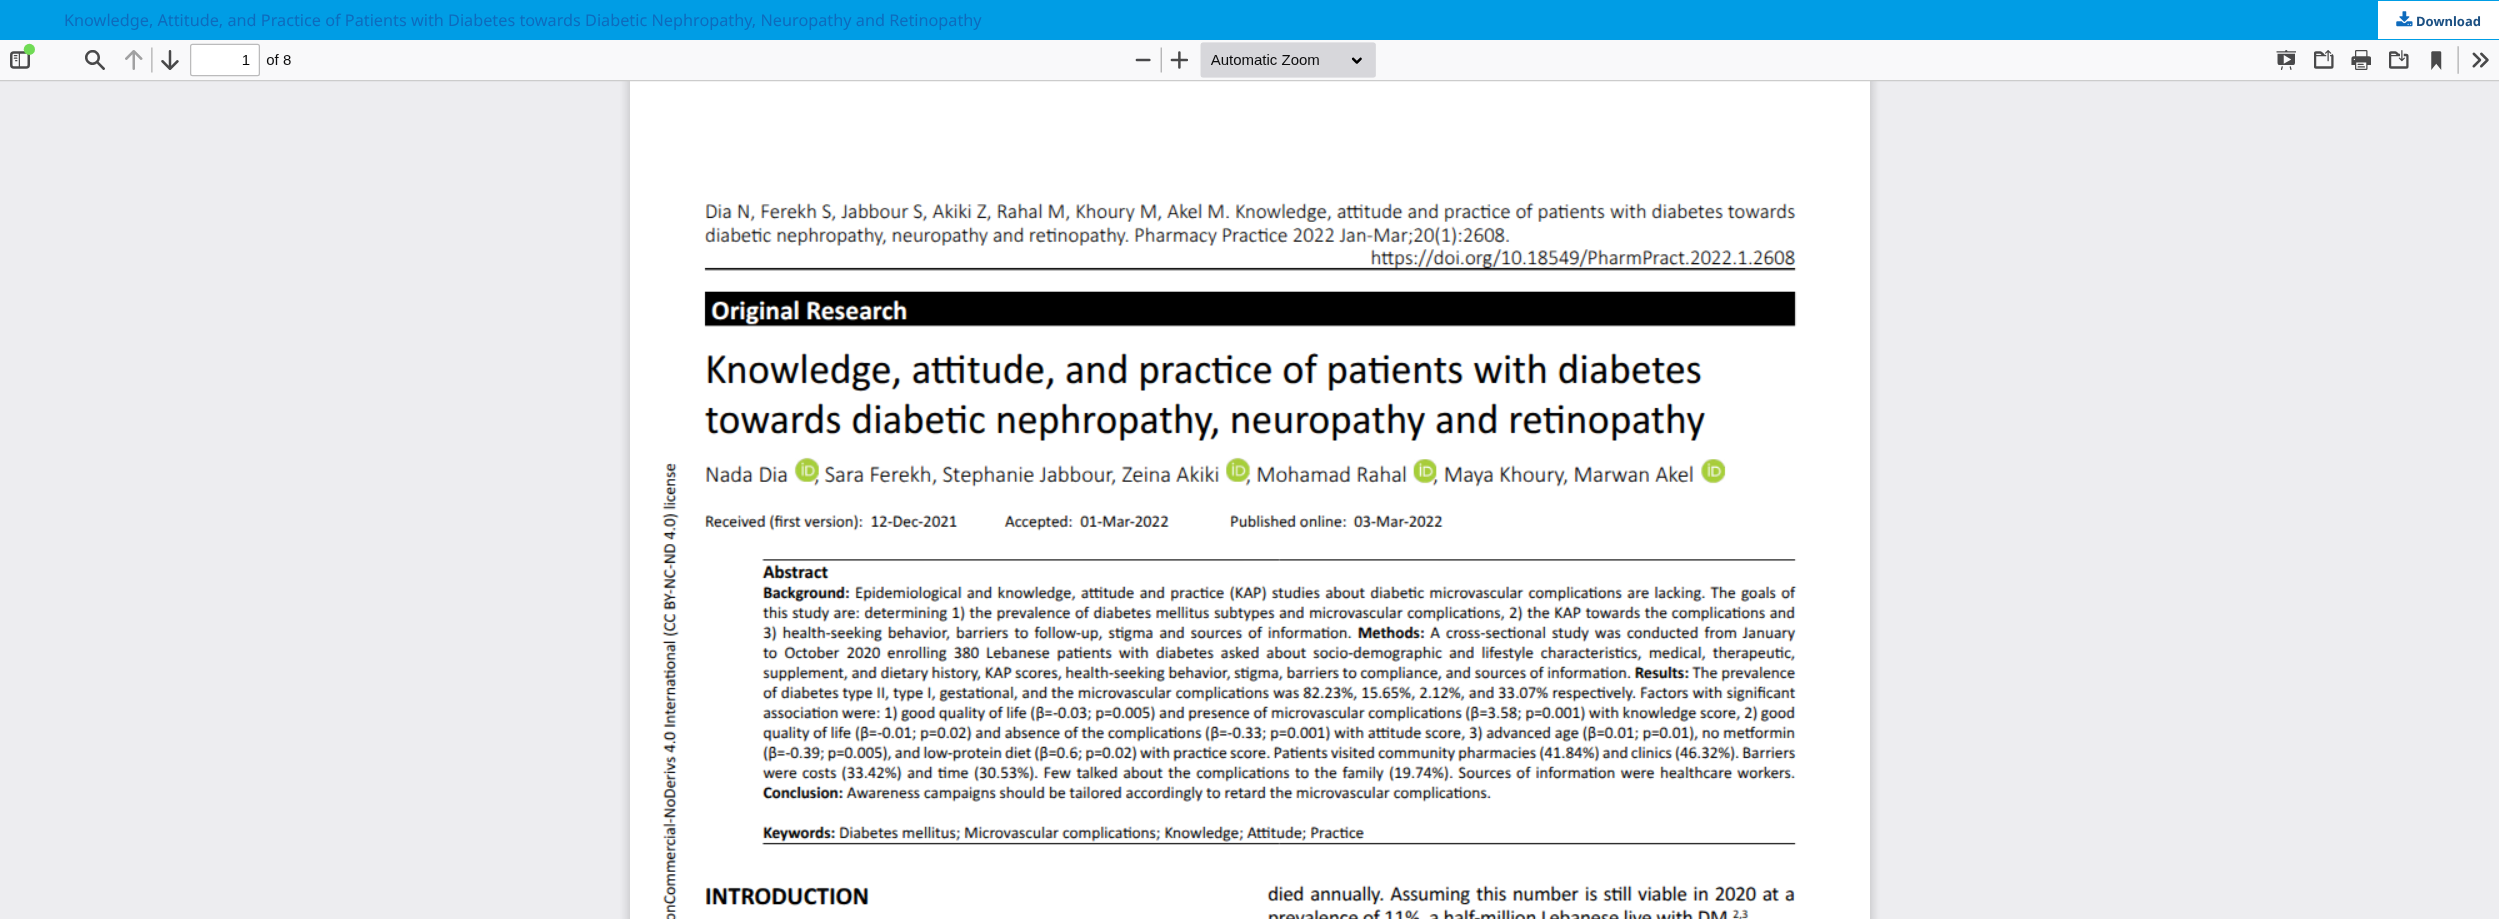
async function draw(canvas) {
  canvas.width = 2499;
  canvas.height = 919;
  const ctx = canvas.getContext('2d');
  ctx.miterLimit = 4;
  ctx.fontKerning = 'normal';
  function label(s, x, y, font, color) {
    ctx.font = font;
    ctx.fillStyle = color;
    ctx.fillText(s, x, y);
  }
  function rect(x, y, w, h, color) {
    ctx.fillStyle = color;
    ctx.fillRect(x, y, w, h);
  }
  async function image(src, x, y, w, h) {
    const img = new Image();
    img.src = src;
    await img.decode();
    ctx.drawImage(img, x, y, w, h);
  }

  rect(0, 0, 2499, 919, '#fff');
  rect(0, 0, 2499, 40, '#009de5');
  label('Knowledge, Attitude, and Practice of Patients with Diabetes towards Diabetic Nephropathy, Neuropathy and Retinopathy', 64, 26, '16.25px Noto Sans', '#0e6bbd');
  rect(2378, 1, 121, 38, '#fff');
  await image('assets/img1.png', 2396, 11, 17, 16);
  label('Download', 2416, 26, 'bold 13px Noto Sans', '#1b5083');
  await image('assets/img2.png', 0, 40, 2499, 879);
}

draw(document.querySelector('canvas'));
